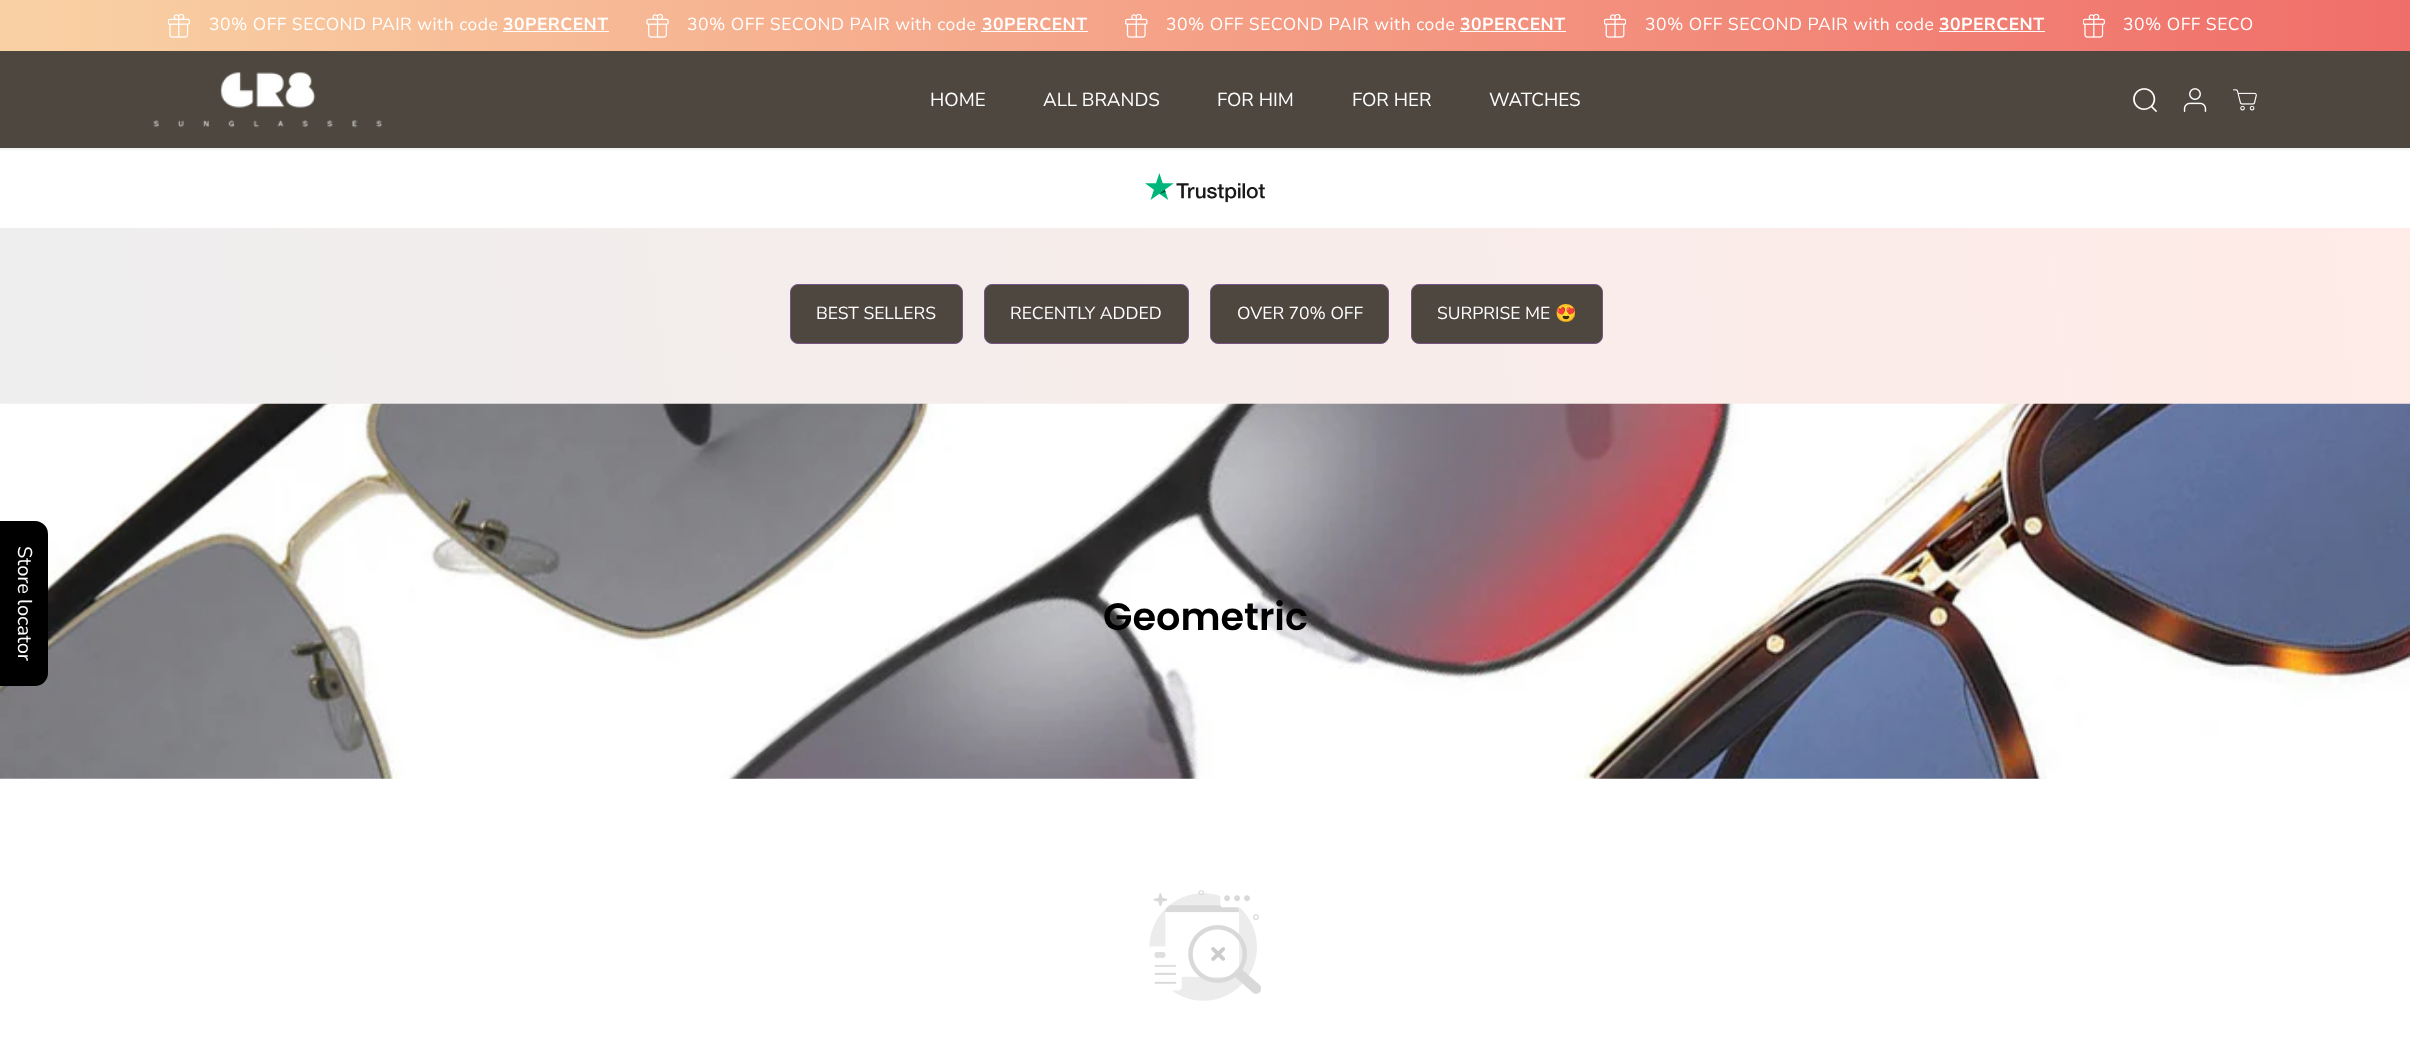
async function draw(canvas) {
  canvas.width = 2410;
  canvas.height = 1041;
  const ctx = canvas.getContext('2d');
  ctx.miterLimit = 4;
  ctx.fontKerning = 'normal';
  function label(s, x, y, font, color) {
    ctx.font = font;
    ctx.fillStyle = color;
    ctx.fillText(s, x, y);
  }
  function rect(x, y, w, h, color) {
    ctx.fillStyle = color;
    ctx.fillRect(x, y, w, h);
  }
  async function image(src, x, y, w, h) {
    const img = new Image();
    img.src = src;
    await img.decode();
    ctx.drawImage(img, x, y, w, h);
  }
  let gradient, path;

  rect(0, 0, 2410, 1041, '#fff');
  rect(0, 51, 2410, 97, '#4d473f');
  ctx.save();
  path = new Path2D('M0 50H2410V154H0ZM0 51H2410V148H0Z');
  ctx.clip(path, 'evenodd');
  ctx.fillStyle = '#0000000d';
  ctx.filter = 'blur(1px)';
  ctx.beginPath();
  ctx.rect(0, 54, 2410, 96);
  ctx.fill();
  ctx.filter = 'none';
  ctx.restore();
  gradient = ctx.createLinearGradient(2410, 26, 0, 26);
  gradient.addColorStop(0, '#f06e69');
  gradient.addColorStop(0.98, '#f9d0a3');
  ctx.fillStyle = gradient;
  ctx.fillRect(0, 0, 2410, 51);
  await image('assets/img1.png', 168, 14, 22, 24);
  ctx.letterSpacing = '0.5px';
  label('30% OFF SECOND PAIR with code', 209, 30, '17.5px Nunito Sans', '#fff');
  label('30PERCENT', 503, 30, 'bold 17.5px Nunito Sans', '#fff');
  rect(503, 31, 106, 1, '#fff');
  await image('assets/img2.png', 646, 14, 23, 24);
  label('30% OFF SECOND PAIR with code', 687, 30, '17.5px Nunito Sans', '#fff');
  label('30PERCENT', 982, 30, 'bold 17.5px Nunito Sans', '#fff');
  rect(981, 31, 107, 1, '#fff');
  await image('assets/img3.png', 1125, 14, 23, 24);
  label('30% OFF SECOND PAIR with code', 1166, 30, '17.5px Nunito Sans', '#fff');
  label('30PERCENT', 1460, 30, 'bold 17.5px Nunito Sans', '#fff');
  rect(1460, 31, 106, 1, '#fff');
  await image('assets/img4.png', 1604, 14, 22, 24);
  label('30% OFF SECOND PAIR with code', 1645, 30, '17.5px Nunito Sans', '#fff');
  label('30PERCENT', 1939, 30, 'bold 17.5px Nunito Sans', '#fff');
  rect(1939, 31, 106, 1, '#fff');
  await image('assets/img5.png', 2083, 14, 22, 24);
  label('30% OFF SECO', 2123, 30, '17.5px Nunito Sans', '#fff');
  await image('assets/img6.png', 153, 72, 229, 56);
  ctx.letterSpacing = '0px';
  label('HOME', 930, 106, '18.75px Nunito Sans', '#fff');
  label('ALL BRANDS', 1043, 106, '18.75px Nunito Sans', '#fff');
  label('FOR HIM', 1217, 106, '18.75px Nunito Sans', '#fff');
  label('FOR HER', 1352, 106, '18.75px Nunito Sans', '#fff');
  label('WATCHES', 1489, 106, '18.75px Nunito Sans', '#fff');
  await image('assets/img7.png', 2133, 88, 24, 24);
  await image('assets/img8.png', 2183, 88, 24, 24);
  await image('assets/img9.png', 2233, 89, 24, 22);
  await image('assets/img10.png', 1145, 173, 120, 30);
  gradient = ctx.createLinearGradient(2399, 148, 11, 483);
  gradient.addColorStop(0, '#ffebe7');
  gradient.addColorStop(1, '#eee');
  ctx.fillStyle = gradient;
  ctx.fillRect(0, 228, 2410, 176);
  await image('assets/img11.png', 0, 403, 2410, 376);
  ctx.fillStyle = '#000';
  ctx.beginPath();
  ctx.roundRect(0, 521, 48, 165, [0, 13, 13, 0]);
  ctx.fill();
  ctx.font = '20px Nunito Sans';
  ctx.fillStyle = '#fff';
  ctx.save();
  ctx.translate(18, 546);
  ctx.rotate(90 * Math.PI / 180);
  ctx.fillText('Store locator', 0, 0);
  ctx.restore();
  ctx.fillStyle = '#4d4740';
  ctx.beginPath();
  ctx.roundRect(790.5, 284.5, 172, 59, 7.5);
  ctx.fill();
  ctx.strokeStyle = '#765586';
  ctx.stroke();
  label('BEST SELLERS', 816, 319, '17.5px Nunito Sans', '#fff');
  ctx.fillStyle = '#4d4740';
  ctx.beginPath();
  ctx.roundRect(984.5, 284.5, 204, 59, 7.5);
  ctx.fill();
  ctx.stroke();
  label('RECENTLY ADDED', 1010, 319, '17.5px Nunito Sans', '#fff');
  ctx.fillStyle = '#4d4740';
  ctx.beginPath();
  ctx.roundRect(1210.5, 284.5, 178, 59, 7.5);
  ctx.fill();
  ctx.stroke();
  label('OVER 70% OFF', 1237, 319, '17.5px Nunito Sans', '#fff');
  ctx.fillStyle = '#4d4740';
  ctx.beginPath();
  ctx.roundRect(1411.5, 284.5, 191, 59, 7.5);
  ctx.fill();
  ctx.stroke();
  label('SURPRISE ME', 1437, 319, '17.5px Nunito Sans', '#fff');
  label('😍', 1555, 319, '17.5px Noto Color Emoji', '#fff');
  label('Geometric', 1103, 630, '600 38.25px Poppins', '#000');
  await image('assets/img12.png', 1149, 890, 112, 111);
}

draw(document.querySelector('canvas'));
